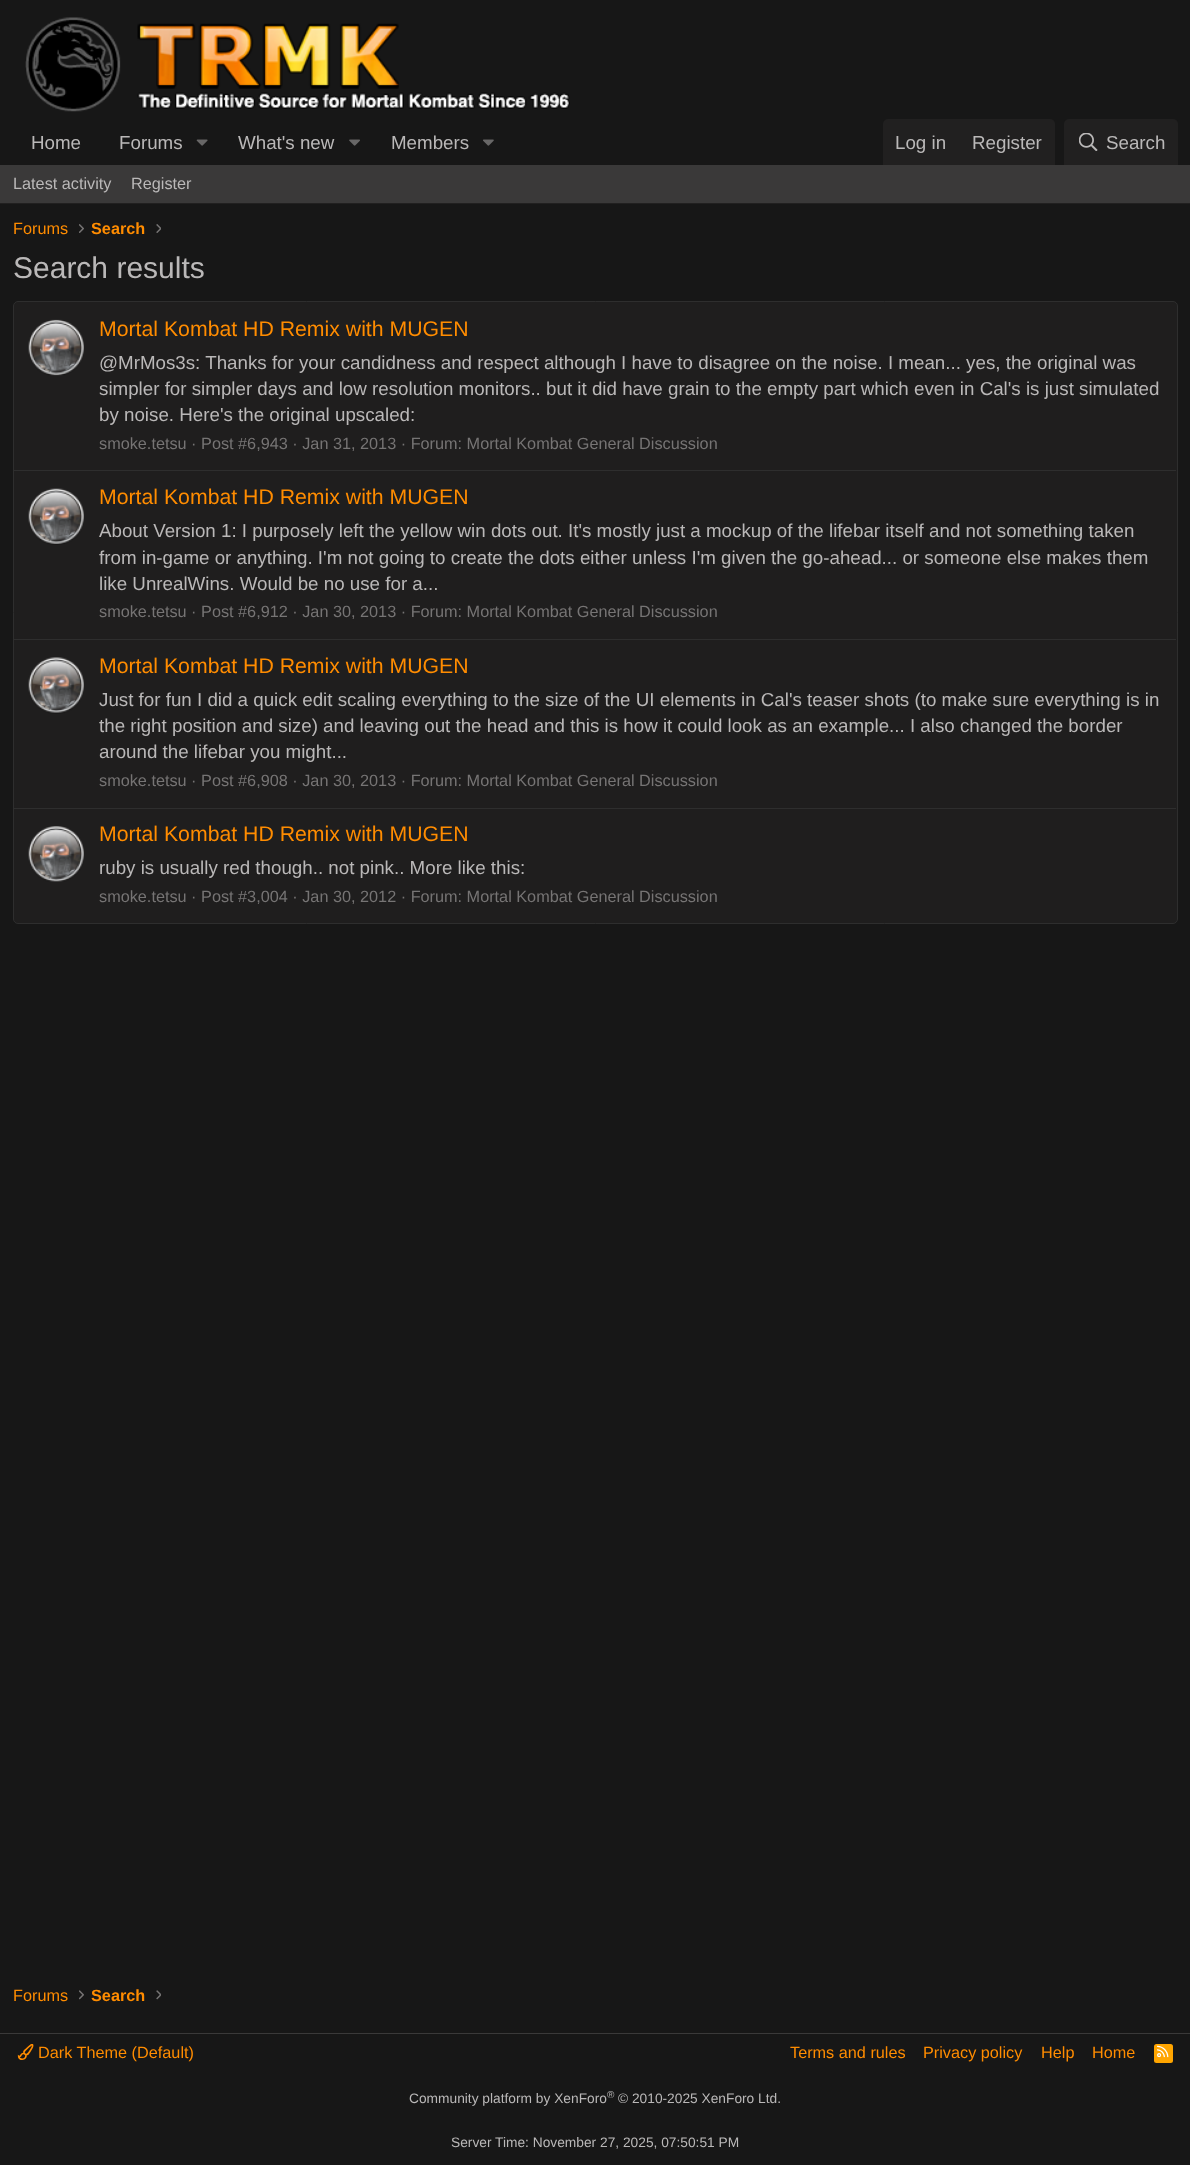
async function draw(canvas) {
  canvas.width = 1190;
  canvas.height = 2165;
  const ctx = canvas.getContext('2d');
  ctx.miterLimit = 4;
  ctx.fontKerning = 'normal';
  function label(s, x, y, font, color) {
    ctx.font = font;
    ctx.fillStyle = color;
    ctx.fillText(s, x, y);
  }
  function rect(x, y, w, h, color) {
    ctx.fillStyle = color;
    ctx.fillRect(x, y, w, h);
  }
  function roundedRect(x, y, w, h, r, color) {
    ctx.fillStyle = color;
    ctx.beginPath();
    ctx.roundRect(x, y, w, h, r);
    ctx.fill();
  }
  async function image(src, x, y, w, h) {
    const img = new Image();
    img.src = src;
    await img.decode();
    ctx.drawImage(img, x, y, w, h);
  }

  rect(0, 0, 1190, 2165, '#171717');
  await image('assets/img1.png', 25, 17, 545, 95);
  label('Home', 31, 149, '18.75px Liberation Sans', '#bab8b8');
  label('Forums', 119, 149, '18.75px Liberation Sans', '#bab8b8');
  await image('assets/img2.png', 196, 139, 12, 7);
  label('What\'s new', 238, 149, '18.75px Liberation Sans', '#bab8b8');
  await image('assets/img3.png', 349, 139, 11, 7);
  label('Members', 391, 149, '18.75px Liberation Sans', '#bab8b8');
  await image('assets/img4.png', 483, 139, 11, 7);
  ctx.fillStyle = '#212020';
  ctx.beginPath();
  ctx.roundRect(883, 119, 172, 46, [5, 5, 0, 0]);
  ctx.fill();
  label('Log in', 895, 149, '18.75px Liberation Sans', '#bab8b8');
  label('Register', 972, 149, '18.75px Liberation Sans', '#bab8b8');
  ctx.fillStyle = '#212020';
  ctx.beginPath();
  ctx.roundRect(1064, 119, 114, 46, [5, 5, 0, 0]);
  ctx.fill();
  await image('assets/img5.png', 1079, 133, 19, 18);
  label('Search', 1106, 149, '18.75px Liberation Sans', '#bab8b8');
  rect(0, 165, 1190, 38, '#3a3939');
  rect(0, 203, 1190, 1, '#212020');
  label('Latest activity', 13, 189, '16.25px Liberation Sans', '#bab8b8');
  label('Register', 131, 189, '16.25px Liberation Sans', '#bab8b8');
  label('Forums', 13, 234, '16.25px Liberation Sans', '#ff8c00');
  await image('assets/img6.png', 79, 224, 5, 9);
  label('Search', 91, 234, 'bold 16.25px Liberation Sans', '#ff8c00');
  await image('assets/img7.png', 156, 224, 5, 9);
  label('Search results', 13, 278, '30px Liberation Sans', '#bab8b8');
  ctx.fillStyle = '#1f1e1e';
  ctx.beginPath();
  ctx.roundRect(13.5, 301.5, 1164, 622, 4.5);
  ctx.fill();
  ctx.strokeStyle = '#2e2e2e';
  ctx.stroke();
  await image('assets/img8.png', 28, 319, 56, 57);
  label('Mortal Kombat HD Remix with MUGEN', 99, 336, '21.25px Liberation Sans', '#ff8c00');
  label('@MrMos3s: Thanks for your candidness and respect although I have to disagree on the noise. I mean... yes, the original was', 99, 369, '18.75px Liberation Sans', '#bab8b8');
  label('simpler for simpler days and low resolution monitors.. but it did have grain to the empty part which even in Cal\'s is just simulated', 99, 395, '18.75px Liberation Sans', '#bab8b8');
  label('by noise. Here\'s the original upscaled:', 99, 421, '18.75px Liberation Sans', '#bab8b8');
  label('smoke.tetsu · Post #6,943 · Jan 31, 2013 · Forum: Mortal Kombat General Discussion', 99, 449, '16.25px Liberation Sans', '#767474');
  rect(14, 470, 1162, 1, '#2e2e2e');
  await image('assets/img9.png', 28, 488, 56, 57);
  label('Mortal Kombat HD Remix with MUGEN', 99, 504, '21.25px Liberation Sans', '#ff8c00');
  label('About Version 1: I purposely left the yellow win dots out. It\'s mostly just a mockup of the lifebar itself and not something taken', 99, 537, '18.75px Liberation Sans', '#bab8b8');
  label('from in-game or anything. I\'m not going to create the dots either unless I\'m given the go-ahead... or someone else makes them', 99, 564, '18.75px Liberation Sans', '#bab8b8');
  label('like UnrealWins. Would be no use for a...', 99, 590, '18.75px Liberation Sans', '#bab8b8');
  label('smoke.tetsu · Post #6,912 · Jan 30, 2013 · Forum: Mortal Kombat General Discussion', 99, 617, '16.25px Liberation Sans', '#767474');
  rect(14, 639, 1162, 1, '#2e2e2e');
  await image('assets/img10.png', 28, 657, 56, 57);
  label('Mortal Kombat HD Remix with MUGEN', 99, 673, '21.25px Liberation Sans', '#ff8c00');
  label('Just for fun I did a quick edit scaling everything to the size of the UI elements in Cal\'s teaser shots (to make sure everything is in', 99, 706, '18.75px Liberation Sans', '#bab8b8');
  label('the right position and size) and leaving out the head and this is how it could look as an example... I also changed the border', 99, 732, '18.75px Liberation Sans', '#bab8b8');
  label('around the lifebar you might...', 99, 758, '18.75px Liberation Sans', '#bab8b8');
  label('smoke.tetsu · Post #6,908 · Jan 30, 2013 · Forum: Mortal Kombat General Discussion', 99, 786, '16.25px Liberation Sans', '#767474');
  rect(14, 808, 1162, 1, '#2e2e2e');
  await image('assets/img11.png', 28, 826, 56, 56);
  label('Mortal Kombat HD Remix with MUGEN', 99, 841, '21.25px Liberation Sans', '#ff8c00');
  label('ruby is usually red though.. not pink.. More like this:', 99, 874, '18.75px Liberation Sans', '#bab8b8');
  label('smoke.tetsu · Post #3,004 · Jan 30, 2012 · Forum: Mortal Kombat General Discussion', 99, 902, '16.25px Liberation Sans', '#767474');
  label('Forums', 13, 2001, '16.25px Liberation Sans', '#ff8c00');
  await image('assets/img12.png', 79, 1990, 5, 10);
  label('Search', 91, 2001, 'bold 16.25px Liberation Sans', '#ff8c00');
  await image('assets/img13.png', 156, 1990, 5, 10);
  rect(0, 2033, 1190, 1, '#3a3939');
  await image('assets/img14.png', 17, 2044, 17, 16);
  label('Dark Theme (Default)', 38, 2058, '16.25px Liberation Sans', '#ff8c00');
  label('Terms and rules', 790, 2058, '16.25px Liberation Sans', '#ff8c00');
  label('Privacy policy', 923, 2058, '16.25px Liberation Sans', '#ff8c00');
  label('Help', 1041, 2058, '16.25px Liberation Sans', '#ff8c00');
  label('Home', 1092, 2058, '16.25px Liberation Sans', '#ff8c00');
  roundedRect(1154, 2044, 19, 19, 2.5, '#ffa500');
  await image('assets/img15.png', 1157, 2045, 12, 13);
  label('Community platform by XenForo', 409, 2103, '13.75px Liberation Sans', '#bab8b8');
  label('®', 607, 2098, '10px Liberation Sans', '#bab8b8');
  label('© 2010-2025 XenForo Ltd.', 618, 2103, '13.75px Liberation Sans', '#bab8b8');
  label('Server Time: November 27, 2025, 07:50:51 PM', 451, 2147, '13.75px Liberation Sans', '#bab8b8');
}

draw(document.querySelector('canvas'));
